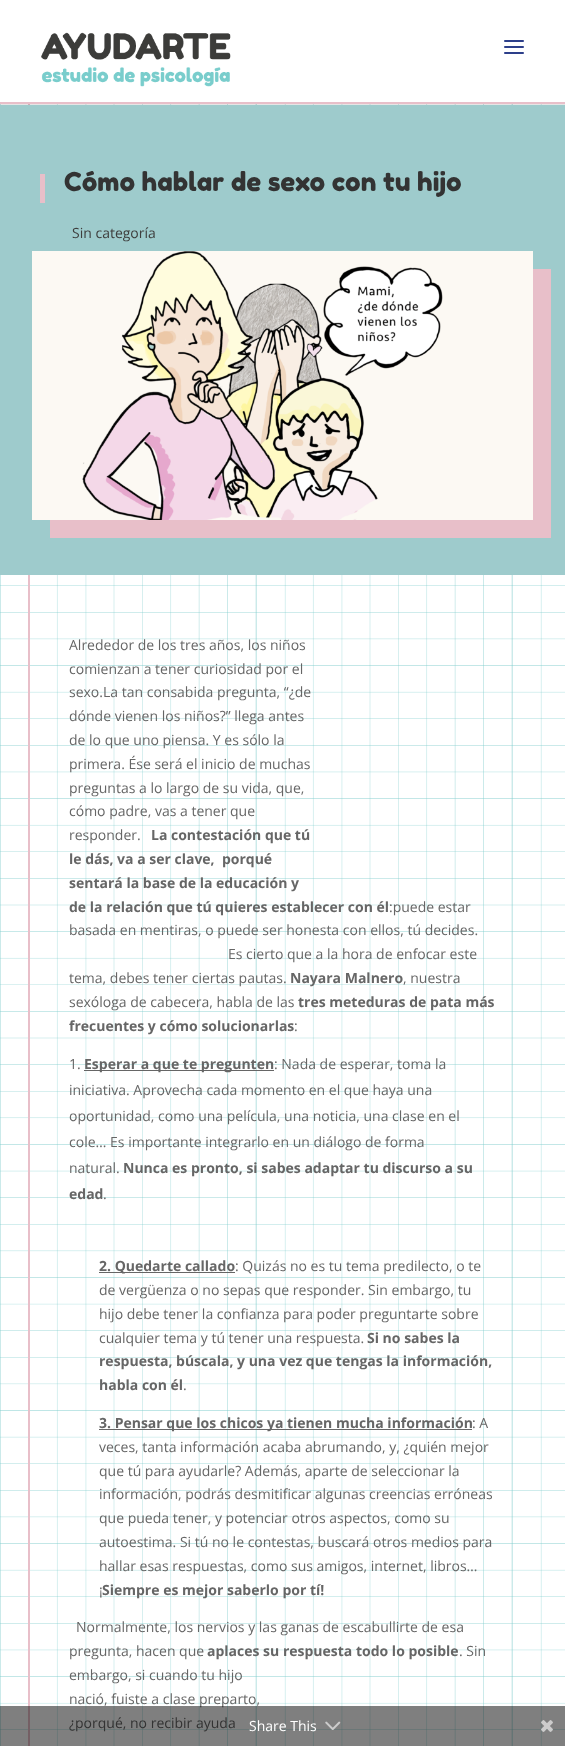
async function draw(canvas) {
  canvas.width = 565;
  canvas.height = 1746;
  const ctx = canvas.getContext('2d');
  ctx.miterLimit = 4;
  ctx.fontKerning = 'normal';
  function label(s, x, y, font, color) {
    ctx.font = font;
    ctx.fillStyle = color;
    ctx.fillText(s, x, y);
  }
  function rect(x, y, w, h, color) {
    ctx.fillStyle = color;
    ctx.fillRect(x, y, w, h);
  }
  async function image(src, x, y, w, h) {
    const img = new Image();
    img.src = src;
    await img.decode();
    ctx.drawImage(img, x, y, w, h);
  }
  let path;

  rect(0, 0, 565, 1746, '#fff');
  await image('assets/img1.png', 0, 104, 565, 1642);
  rect(28, 104, 2, 1642, '#e8bfc9');
  rect(0, 104, 565, 1, '#0000001a');
  rect(0, 102, 565, 2, '#e8bfc9');
  await image('assets/img2.png', 41, 32, 190, 55);
  await image('assets/img3.png', 504, 40, 20, 14);
  rect(0, 105, 565, 470, '#9ecbcc');
  rect(40, 174, 5, 29, '#e8bfc9');
  label('Cómo hablar de sexo con tu hijo', 64, 191, '26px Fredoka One', '#333');
  label('Sin categoría', 72, 238, '14px Open Sans', '#3e3e3d');
  ctx.fillStyle = '#e8bfc9';
  path = new Path2D('M50 520V538H551V269H533V520Z');
  ctx.fill(path);
  await image('assets/img4.png', 32, 251, 501, 269);
  label('Alrededor de los tres años, los niños', 69, 650, '14px Open Sans', '#666');
  label('comienzan a tener curiosidad por el', 69, 674, '14px Open Sans', '#666');
  label('sexo.La tan consabida pregunta, “¿de', 69, 697, '14px Open Sans', '#666');
  label('dónde vienen los niños?” llega antes', 69, 721, '14px Open Sans', '#666');
  label('de lo que uno piensa. Y es sólo la', 69, 745, '14px Open Sans', '#666');
  label('primera. Ése será el inicio de muchas', 69, 769, '14px Open Sans', '#666');
  label('preguntas a lo largo de su vida, que,', 69, 793, '14px Open Sans', '#666');
  label('cómo padre, vas a tener que', 69, 816, '14px Open Sans', '#666');
  label('responder.', 69, 840, '14px Open Sans', '#666');
  label('La contestación que tú', 151, 840, 'bold 14px Open Sans', '#666');
  label('le dás, va a ser clave,  porqué', 69, 864, 'bold 14px Open Sans', '#666');
  label('sentará la base de la educación y', 69, 888, 'bold 14px Open Sans', '#666');
  label('de la relación que tú quieres establecer con él', 69, 912, 'bold 14px Open Sans', '#666');
  label(':puede estar', 389, 912, '14px Open Sans', '#666');
  label('basada en mentiras, o puede ser honesta con ellos, tú decides.', 69, 935, '14px Open Sans', '#666');
  label('Es cierto que a la hora de enfocar este', 228, 959, '14px Open Sans', '#666');
  label('tema, debes tener ciertas pautas.', 69, 983, '14px Open Sans', '#666');
  label('Nayara Malnero', 290, 983, 'bold 14px Open Sans', '#666');
  label(', nuestra', 403, 983, '14px Open Sans', '#666');
  label('sexóloga de cabecera, habla de las', 69, 1007, '14px Open Sans', '#666');
  label('tres meteduras de pata más', 298, 1007, 'bold 14px Open Sans', '#666');
  label('frecuentes y cómo solucionarlas', 69, 1031, 'bold 14px Open Sans', '#666');
  label(':', 294, 1031, '14px Open Sans', '#666');
  label('1.', 69, 1069, '14px Open Sans', '#666');
  rect(84, 1070, 190, 1, '#666');
  label('Esperar a que te pregunten', 84, 1069, 'bold 14px Open Sans', '#666');
  label(': Nada de esperar, toma la', 274, 1069, '14px Open Sans', '#666');
  label('iniciativa. Aprovecha cada momento en el que haya una', 69, 1095, '14px Open Sans', '#666');
  label('oportunidad, como una película, una noticia, una clase en el', 69, 1121, '14px Open Sans', '#666');
  label('cole… Es importante integrarlo en un diálogo de forma', 69, 1147, '14px Open Sans', '#666');
  label('natural.', 69, 1173, '14px Open Sans', '#666');
  label('Nunca es pronto, si sabes adaptar tu discurso a su', 123, 1173, 'bold 14px Open Sans', '#666');
  label('edad', 69, 1199, 'bold 14px Open Sans', '#666');
  label('.', 103, 1199, '14px Open Sans', '#666');
  rect(99, 1272, 136, 1, '#666');
  label('2. Quedarte callado', 99, 1271, 'bold 14px Open Sans', '#666');
  label(': Quizás no es tu tema predilecto, o te', 235, 1271, '14px Open Sans', '#666');
  label('de vergüenza o no sepas que responder. Sin embargo, tu', 99, 1295, '14px Open Sans', '#666');
  label('hijo debe tener la confianza para poder preguntarte sobre', 99, 1319, '14px Open Sans', '#666');
  label('cualquier tema y tú tener una respuesta.', 99, 1343, '14px Open Sans', '#666');
  label('Si no sabes la', 367, 1343, 'bold 14px Open Sans', '#666');
  label('respuesta, búscala, y una vez que tengas la información,', 99, 1366, 'bold 14px Open Sans', '#666');
  label('habla con él', 99, 1390, 'bold 14px Open Sans', '#666');
  label('.', 183, 1390, '14px Open Sans', '#666');
  rect(99, 1429, 373, 1, '#666');
  label('3. Pensar que los chicos ya tienen mucha información', 99, 1428, 'bold 14px Open Sans', '#666');
  label(': A', 472, 1428, '14px Open Sans', '#666');
  label('veces, tanta información acaba abrumando, y, ¿quién mejor', 99, 1452, '14px Open Sans', '#666');
  label('que tú para ayudarle? Además, aparte de seleccionar la', 99, 1476, '14px Open Sans', '#666');
  label('información, podrás desmitificar algunas creencias erróneas', 99, 1499, '14px Open Sans', '#666');
  label('que pueda tener, y potenciar otros aspectos, como su', 99, 1523, '14px Open Sans', '#666');
  label('autoestima. Si tú no le contestas, buscará otros medios para', 99, 1547, '14px Open Sans', '#666');
  label('hallar esas respuestas, como sus amigos, internet, libros…', 99, 1571, '14px Open Sans', '#666');
  label('¡', 99, 1595, '14px Open Sans', '#666');
  label('Siempre es mejor saberlo por tí!', 102, 1595, 'bold 14px Open Sans', '#666');
  label('Normalmente, los nervios y las ganas de escabullirte de esa', 76, 1632, '14px Open Sans', '#666');
  label('pregunta, hacen que', 69, 1656, '14px Open Sans', '#666');
  label('aplaces su respuesta todo lo posible', 207, 1656, 'bold 14px Open Sans', '#666');
  label('. Sin', 459, 1656, '14px Open Sans', '#666');
  label('embargo, si cuando tu hijo', 69, 1680, '14px Open Sans', '#666');
  label('nació, fuiste a clase preparto,', 69, 1704, '14px Open Sans', '#666');
  label('¿porqué, no recibir ayuda', 69, 1728, '14px Open Sans', '#666');
  rect(0, 1706, 565, 40, '#00000080');
  label('Share This', 249, 1731, '14px Open Sans', '#fff');
  await image('assets/img5.png', 325, 1721, 16, 9);
  await image('assets/img6.png', 541, 1720, 12, 12);
}

draw(document.querySelector('canvas'));
